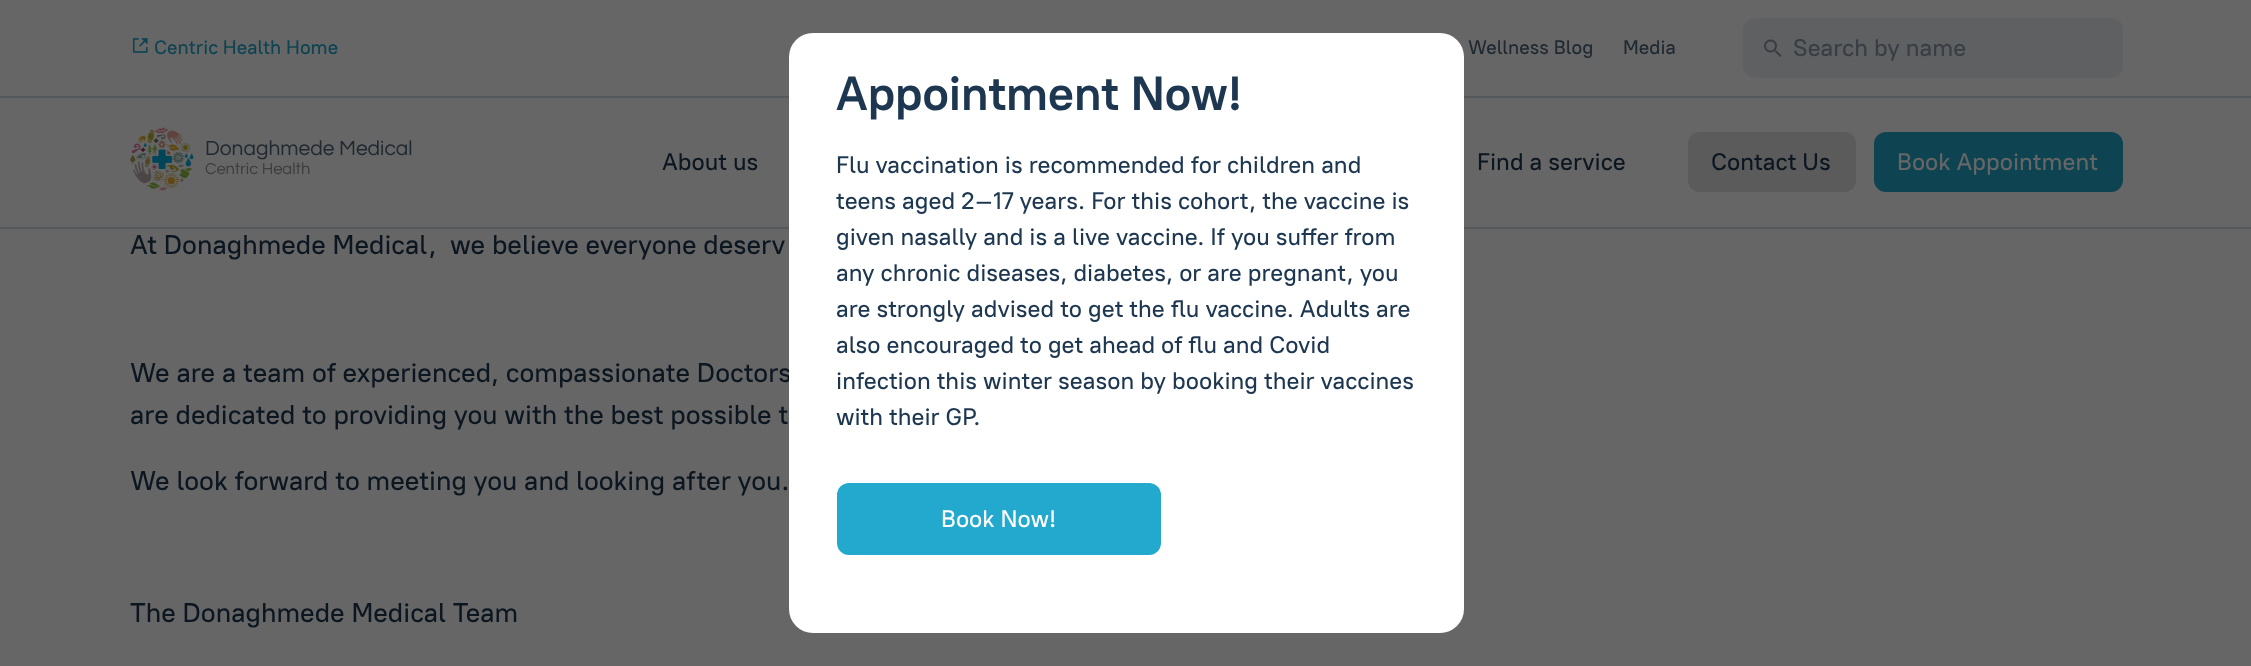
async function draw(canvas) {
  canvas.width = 2251;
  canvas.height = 666;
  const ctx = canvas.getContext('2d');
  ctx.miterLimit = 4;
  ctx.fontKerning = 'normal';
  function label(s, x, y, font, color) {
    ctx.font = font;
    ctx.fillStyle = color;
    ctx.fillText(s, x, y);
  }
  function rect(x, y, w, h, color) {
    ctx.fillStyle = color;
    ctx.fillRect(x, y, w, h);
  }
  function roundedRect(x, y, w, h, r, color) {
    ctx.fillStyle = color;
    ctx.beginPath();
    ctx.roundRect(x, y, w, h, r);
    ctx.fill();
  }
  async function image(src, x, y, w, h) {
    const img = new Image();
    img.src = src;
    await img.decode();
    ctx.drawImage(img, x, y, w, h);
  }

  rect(0, 0, 2251, 666, '#666');
  rect(0, 96, 2251, 2, '#56595c');
  await image('assets/img1.png', 132, 38, 16, 15);
  label('Centric Health Home', 154, 54, '500 19.5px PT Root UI', '#0e4452');
  label('Wellness Blog', 1468, 54, '500 19.5px PT Root UI', '#202931');
  label('Media', 1623, 54, '500 19.5px PT Root UI', '#202931');
  roundedRect(1743, 18, 380, 60, 12, '#5f6062');
  await image('assets/img2.png', 1764, 39, 18, 18);
  label('Search by name', 1793, 56, '500 24px PT Root UI', '#383e44');
  rect(0, 227, 2251, 2, '#56595c');
  await image('assets/img3.png', 130, 127, 64, 64);
  label('Donaghmede Medical', 205, 155, '21px Questrial', '#202931');
  label('Centric Health', 205, 174, '16.5px Questrial', '#3d3d3d');
  label('About us', 662, 170, '500 24px PT Root UI', '#0c1620');
  label('Find a service', 1477, 170, '500 24px PT Root UI', '#0c1620');
  roundedRect(1688, 132, 168, 60, 12, '#5b5b5b');
  label('Contact Us', 1711, 170, '500 24px PT Root UI', '#0c1620');
  roundedRect(1874, 132, 249, 60, 12, '#0e4452');
  label('Book Appointment', 1897, 170, '500 24px PT Root UI', '#666');
  label('At Donaghmede Medical,  we believe everyone deserv', 130, 254, '500 27px PT Root UI', '#0c1620');
  label('We are a team of experienced, compassionate Doctors', 130, 382, '500 27px PT Root UI', '#0c1620');
  label('are dedicated to providing you with the best possible t', 130, 424, '500 27px PT Root UI', '#0c1620');
  label('We look forward to meeting you and looking after you.', 130, 490, '500 27px PT Root UI', '#0c1620');
  label('The Donaghmede Medical Team', 130, 622, '500 27px PT Root UI', '#0c1620');
  roundedRect(789, 33, 675, 600, 24, '#fff');
  label('Appointment Now!', 836, 110, 'bold 48px PT Root UI', '#1e3751');
  label('Flu vaccination is recommended for children and', 836, 173, '500 24px PT Root UI', '#1e3751');
  label('teens aged 2–17 years. For this cohort, the vaccine is', 836, 209, '500 24px PT Root UI', '#1e3751');
  label('given nasally and is a live vaccine. If you suffer from', 836, 245, '500 24px PT Root UI', '#1e3751');
  label('any chronic diseases, diabetes, or are pregnant, you', 836, 281, '500 24px PT Root UI', '#1e3751');
  label('are strongly advised to get the flu vaccine. Adults are', 836, 317, '500 24px PT Root UI', '#1e3751');
  label('also encouraged to get ahead of flu and Covid', 836, 353, '500 24px PT Root UI', '#1e3751');
  label('infection this winter season by booking their vaccines', 836, 389, '500 24px PT Root UI', '#1e3751');
  label('with their GP.', 836, 425, '500 24px PT Root UI', '#1e3751');
  roundedRect(837, 483, 324, 72, 12, '#23a9ce');
  label('Book Now!', 941, 527, '500 24px PT Root UI', '#fff');
}

draw(document.querySelector('canvas'));
